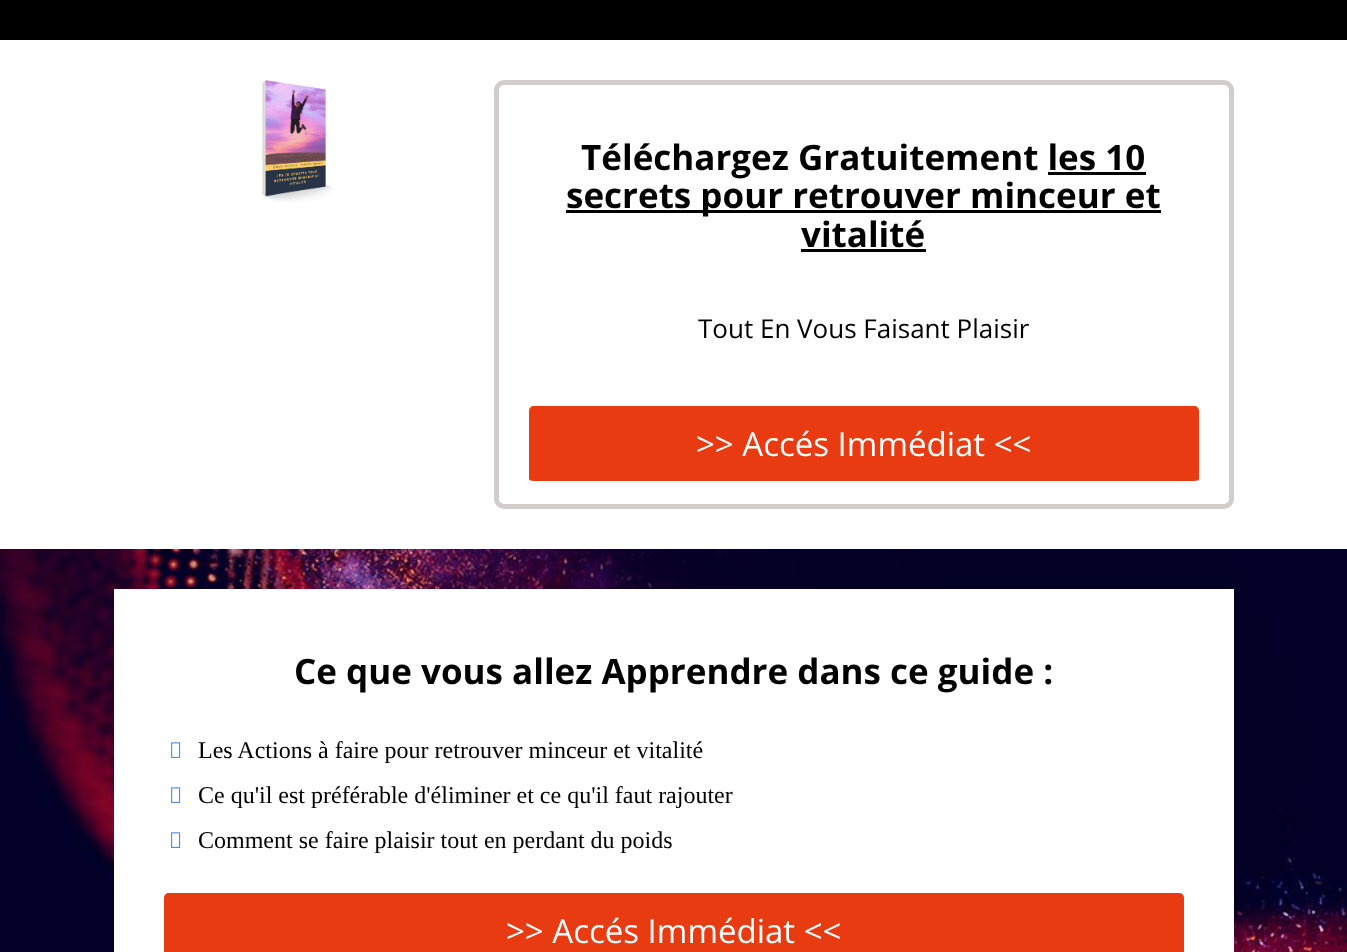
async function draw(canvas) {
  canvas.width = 1347;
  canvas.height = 952;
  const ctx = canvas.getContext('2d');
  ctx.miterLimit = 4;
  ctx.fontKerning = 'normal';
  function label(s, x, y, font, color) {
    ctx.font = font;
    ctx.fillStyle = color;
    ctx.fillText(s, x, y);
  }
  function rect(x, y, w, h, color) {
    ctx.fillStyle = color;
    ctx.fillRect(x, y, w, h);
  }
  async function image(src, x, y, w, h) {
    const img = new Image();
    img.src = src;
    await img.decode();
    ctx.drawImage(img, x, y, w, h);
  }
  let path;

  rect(0, 0, 1347, 952, '#fff');
  rect(0, 0, 1347, 40, '#000');
  await image('assets/img1.png', 261, 80, 72, 122);
  ctx.beginPath();
  ctx.roundRect(496.5, 82.5, 735, 424, 7.5);
  ctx.strokeStyle = '#d2cdcd';
  ctx.lineWidth = 5;
  ctx.stroke();
  label('Téléchargez Gratuitement les 10', 581, 170, 'bold 35px Open Sans', '#000');
  rect(1048, 172, 98, 3, '#000');
  rect(566, 210, 595, 3, '#000');
  label('secrets pour retrouver minceur et', 566, 208, 'bold 35px Open Sans', '#000');
  label('vitalité', 801, 247, 'bold 35px Open Sans', '#000');
  rect(801, 249, 125, 3, '#000');
  label('Tout En Vous Faisant Plaisir', 698, 338, '26px Open Sans', '#000');
  ctx.fillStyle = '#e93b11';
  path = new Path2D('M534 406H1194C1197 406 1199 408 1199 411V479C1199 480 1197 481 1194 481H534C531 481 529 480 529 479V411C529 408 531 406 534 406Z');
  ctx.fill(path);
  label('>> Accés Immédiat <<', 696, 456, '33px Open Sans', '#fff');
  await image('assets/img2.png', 0, 549, 1347, 403);
  rect(114, 589, 1120, 363, '#fff');
  label('Ce que vous allez Apprendre dans ce guide :', 294, 684, 'bold 35px Open Sans', '#000');
  await image('assets/img3.png', 171, 742, 10, 16);
  label('Les Actions à faire pour retrouver minceur et vitalité', 198, 758, '24px Liberation Serif', '#000');
  await image('assets/img3.png', 171, 787, 10, 16);
  label('Ce qu\'il est préférable d\'éliminer et ce qu\'il faut rajouter', 198, 803, '24px Liberation Serif', '#000');
  await image('assets/img3.png', 171, 832, 10, 16);
  label('Comment se faire plaisir tout en perdant du poids', 198, 848, '24px Liberation Serif', '#000');
  ctx.fillStyle = '#e93b11';
  path = new Path2D('M169 893H1179C1182 893 1184 895 1184 898V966C1184 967 1182 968 1179 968H169C166 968 164 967 164 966V898C164 895 166 893 169 893Z');
  ctx.fill(path);
  label('>> Accés Immédiat <<', 506, 943, '33px Open Sans', '#fff');
}

draw(document.querySelector('canvas'));
